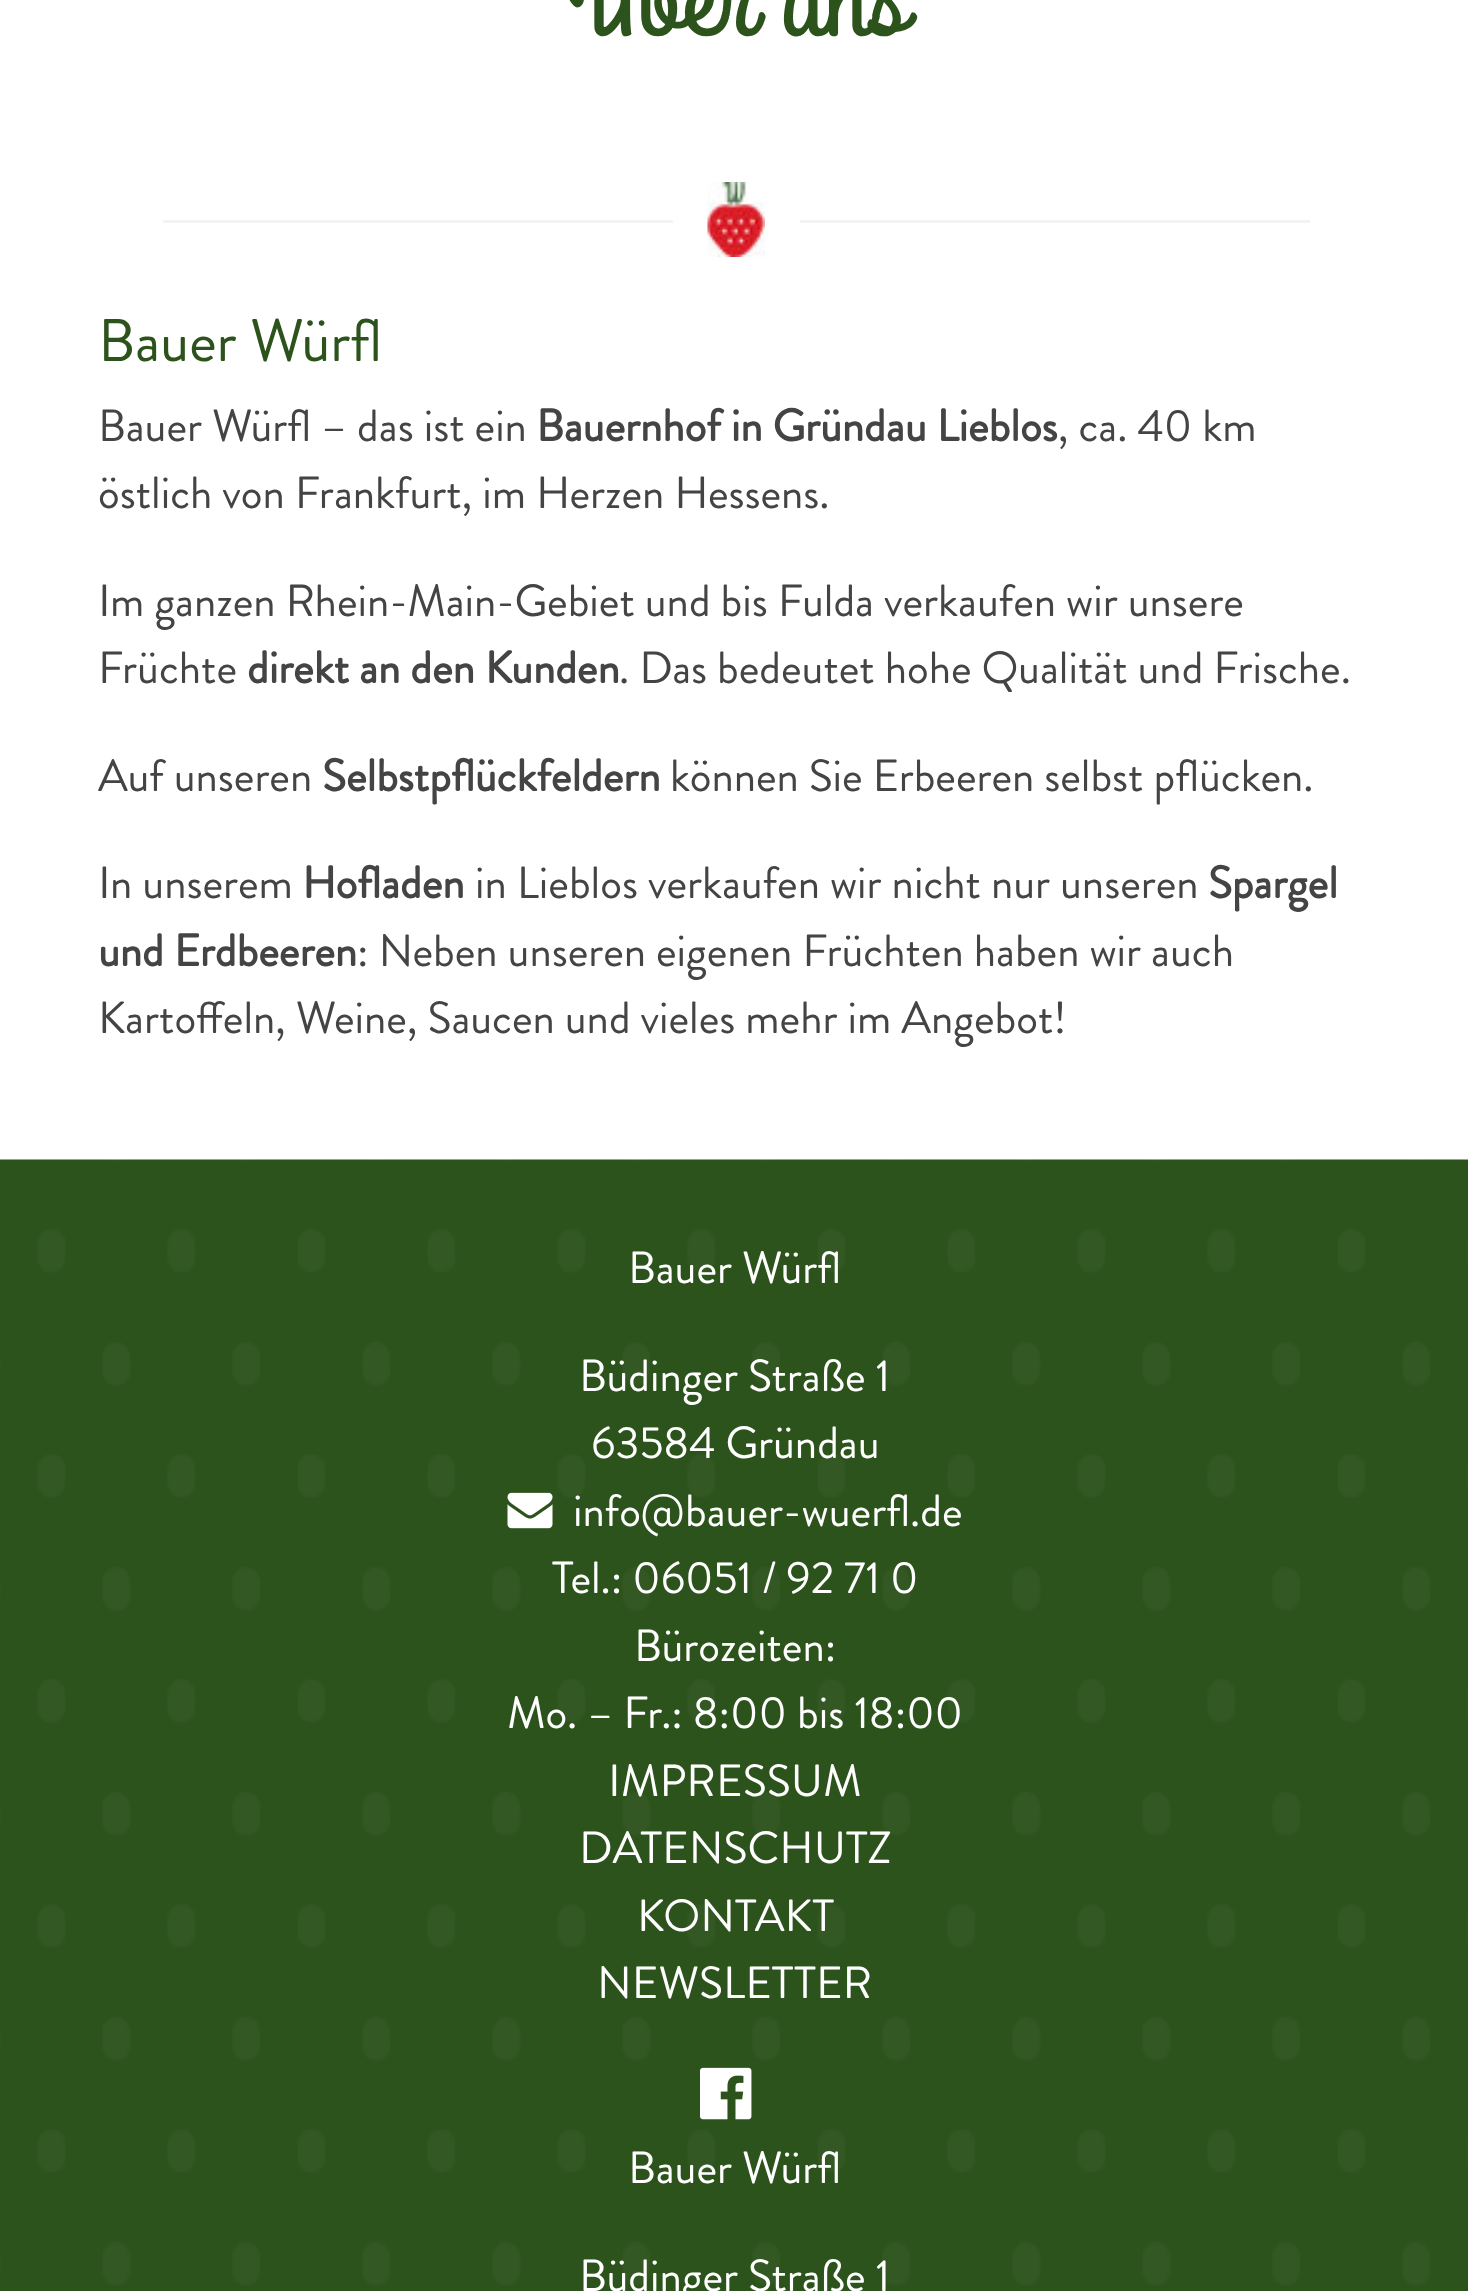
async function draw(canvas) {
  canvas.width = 1468;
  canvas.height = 2291;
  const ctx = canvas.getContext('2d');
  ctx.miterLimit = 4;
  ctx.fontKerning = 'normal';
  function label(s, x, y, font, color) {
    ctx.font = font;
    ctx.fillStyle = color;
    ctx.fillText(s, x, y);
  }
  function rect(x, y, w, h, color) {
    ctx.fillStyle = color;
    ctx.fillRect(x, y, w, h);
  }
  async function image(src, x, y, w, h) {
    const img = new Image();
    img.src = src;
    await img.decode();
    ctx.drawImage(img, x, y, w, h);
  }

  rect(0, 0, 1468, 2291, '#fff');
  label('Über uns', 563, 33, '120px Grand Hotel', '#2d531c');
  await image('assets/img1.png', 707, 182, 58, 75);
  rect(163, 220, 510, 3, '#f3f3f3');
  rect(800, 220, 510, 3, '#f3f3f3');
  label('Bauer Würfl', 98, 361, '60px Brandon Grotesque', '#2d531c');
  label('Bauer Würfl – das ist ein', 98, 441, '45px Brandon Grotesque', '#444');
  label('Bauernhof in Gründau Lieblos', 536, 441, 'bold 45px Brandon Grotesque', '#444');
  label(', ca. 40 km', 1058, 441, '45px Brandon Grotesque', '#444');
  label('östlich von Frankfurt, im Herzen Hessens.', 98, 508, '45px Brandon Grotesque', '#444');
  label('Im ganzen Rhein-Main-Gebiet und bis Fulda verkaufen wir unsere', 98, 616, '45px Brandon Grotesque', '#444');
  label('Früchte', 98, 683, '45px Brandon Grotesque', '#444');
  label('direkt an den Kunden', 247, 683, 'bold 45px Brandon Grotesque', '#444');
  label('. Das bedeutet hohe Qualität und Frische.', 619, 683, '45px Brandon Grotesque', '#444');
  label('Auf unseren', 98, 791, '45px Brandon Grotesque', '#444');
  label('Selbstpflückfeldern', 322, 791, 'bold 45px Brandon Grotesque', '#444');
  label('können Sie Erbeeren selbst pflücken.', 670, 791, '45px Brandon Grotesque', '#444');
  label('In unserem', 98, 898, '45px Brandon Grotesque', '#444');
  label('Hofladen', 302, 898, 'bold 45px Brandon Grotesque', '#444');
  label('in Lieblos verkaufen wir nicht nur unseren', 475, 898, '45px Brandon Grotesque', '#444');
  label('Spargel', 1208, 898, 'bold 45px Brandon Grotesque', '#444');
  label('und Erdbeeren', 98, 966, 'bold 45px Brandon Grotesque', '#444');
  label(': Neben unseren eigenen Früchten haben wir auch', 357, 966, '45px Brandon Grotesque', '#444');
  label('Kartoffeln, Weine, Saucen und vieles mehr im Angebot!', 98, 1033, '45px Brandon Grotesque', '#444');
  await image('assets/img2.png', 0, 1159, 1468, 1132);
  label('Bauer Würfl', 628, 1283, '45px Brandon Grotesque', '#fff');
  label('Büdinger Straße 1', 579, 1391, '45px Brandon Grotesque', '#fff');
  label('63584 Gründau', 591, 1458, '45px Brandon Grotesque', '#fff');
  await image('assets/img3.png', 507, 1492, 46, 37);
  label('info@bauer-wuerfl.de', 573, 1526, '45px Brandon Grotesque', '#fff');
  label('Tel.: 06051 / 92 71 0', 552, 1593, '45px Brandon Grotesque', '#fff');
  label('Bürozeiten:', 634, 1661, '45px Brandon Grotesque', '#fff');
  label('Mo. – Fr.: 8:00 bis 18:00', 507, 1728, '45px Brandon Grotesque', '#fff');
  label('IMPRESSUM', 608, 1796, '45px Brandon Grotesque', '#fff');
  label('DATENSCHUTZ', 579, 1863, '45px Brandon Grotesque', '#fff');
  label('KONTAKT', 637, 1931, '45px Brandon Grotesque', '#fff');
  label('NEWSLETTER', 597, 1998, '45px Brandon Grotesque', '#fff');
  await image('assets/img4.png', 700, 2067, 52, 53);
  label('Bauer Würfl', 628, 2183, '45px Brandon Grotesque', '#fff');
  label('Büdinger Straße 1', 579, 2291, '45px Brandon Grotesque', '#fff');
}

draw(document.querySelector('canvas'));
